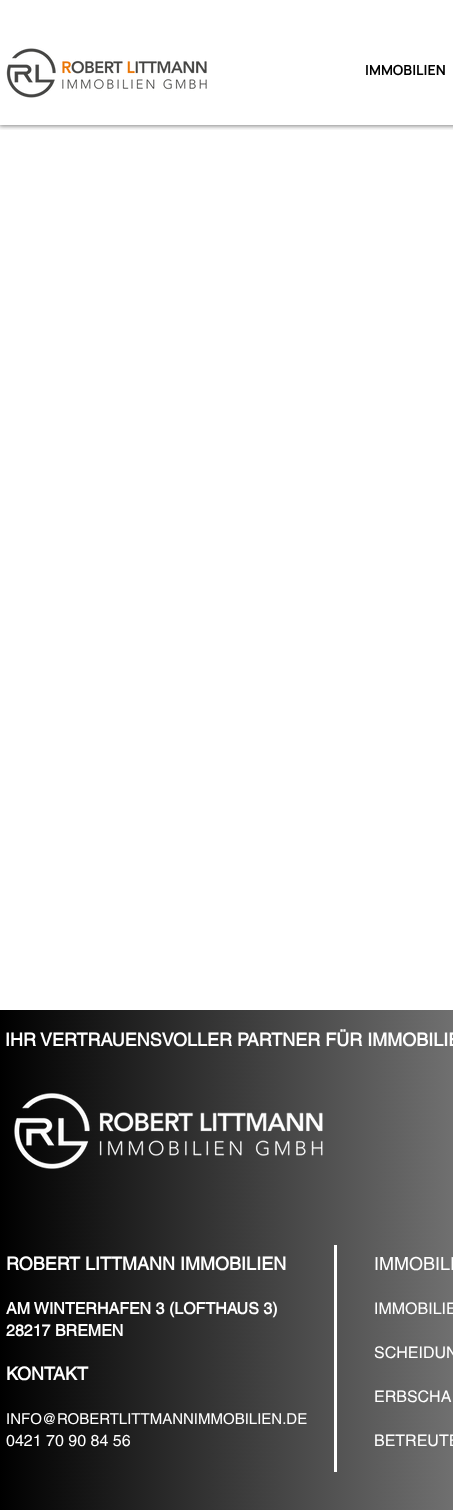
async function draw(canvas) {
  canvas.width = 453;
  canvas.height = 1510;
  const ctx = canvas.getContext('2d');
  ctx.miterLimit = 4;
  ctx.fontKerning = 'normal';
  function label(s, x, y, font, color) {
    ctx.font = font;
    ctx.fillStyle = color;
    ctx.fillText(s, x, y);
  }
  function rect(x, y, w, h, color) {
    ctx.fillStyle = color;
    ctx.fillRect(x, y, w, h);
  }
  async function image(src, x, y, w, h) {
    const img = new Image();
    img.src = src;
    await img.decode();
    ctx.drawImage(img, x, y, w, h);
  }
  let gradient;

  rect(0, 0, 453, 1510, '#fff');
  ctx.save();
  ctx.beginPath();
  ctx.rect(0, 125, 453, 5);
  ctx.clip();
  ctx.fillStyle = '#00000080';
  ctx.filter = 'blur(2.5px)';
  ctx.beginPath();
  ctx.rect(-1, -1, 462, 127);
  ctx.fill();
  ctx.filter = 'none';
  ctx.restore();
  await image('assets/img1.png', 6, 48, 201, 50);
  label('IMMOBILIEN', 365, 75, 'bold 14px Manrope', '#000');
  gradient = ctx.createLinearGradient(0, 1342, 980, 1342);
  gradient.addColorStop(0, '#000');
  gradient.addColorStop(1, '#f2f2f2');
  ctx.fillStyle = gradient;
  ctx.fillRect(0, 1010, 453, 500);
  label('IHR VERTRAUENSVOLLER PARTNER FÜR IMMOBILIE', 5, 1046, 'bold 18px helvetica', '#fff');
  await image('assets/img2.png', 14, 1093, 309, 76);
  label('ROBERT LITTMANN IMMOBILIEN', 6, 1270, 'bold 18px helvetica', '#fff');
  label('AM WINTERHAFEN 3 (LOFTHAUS 3)', 6, 1314, 'bold 16px helvetica', '#fff');
  label('28217 BREMEN', 6, 1336, 'bold 16px helvetica', '#fff');
  label('KONTAKT', 6, 1380, 'bold 18px helvetica', '#fff');
  label('INFO@ROBERTLITTMANNIMMOBILIEN.DE', 6, 1424, '15px helvetica', '#fff');
  label('0421 70 90 84 56', 6, 1446, '16px helvetica', '#fff');
  rect(334, 1245, 3, 227, '#fff');
  label('IMMOBILI', 374, 1270, '18px helvetica', '#fff');
  label('IMMOBILIE', 374, 1314, '16px helvetica', '#fff');
  label('SCHEIDUN', 374, 1358, '16px helvetica', '#fff');
  label('ERBSCHA', 374, 1402, '16px helvetica', '#fff');
  label('BETREUTE', 374, 1446, '16px helvetica', '#fff');
}

draw(document.querySelector('canvas'));
